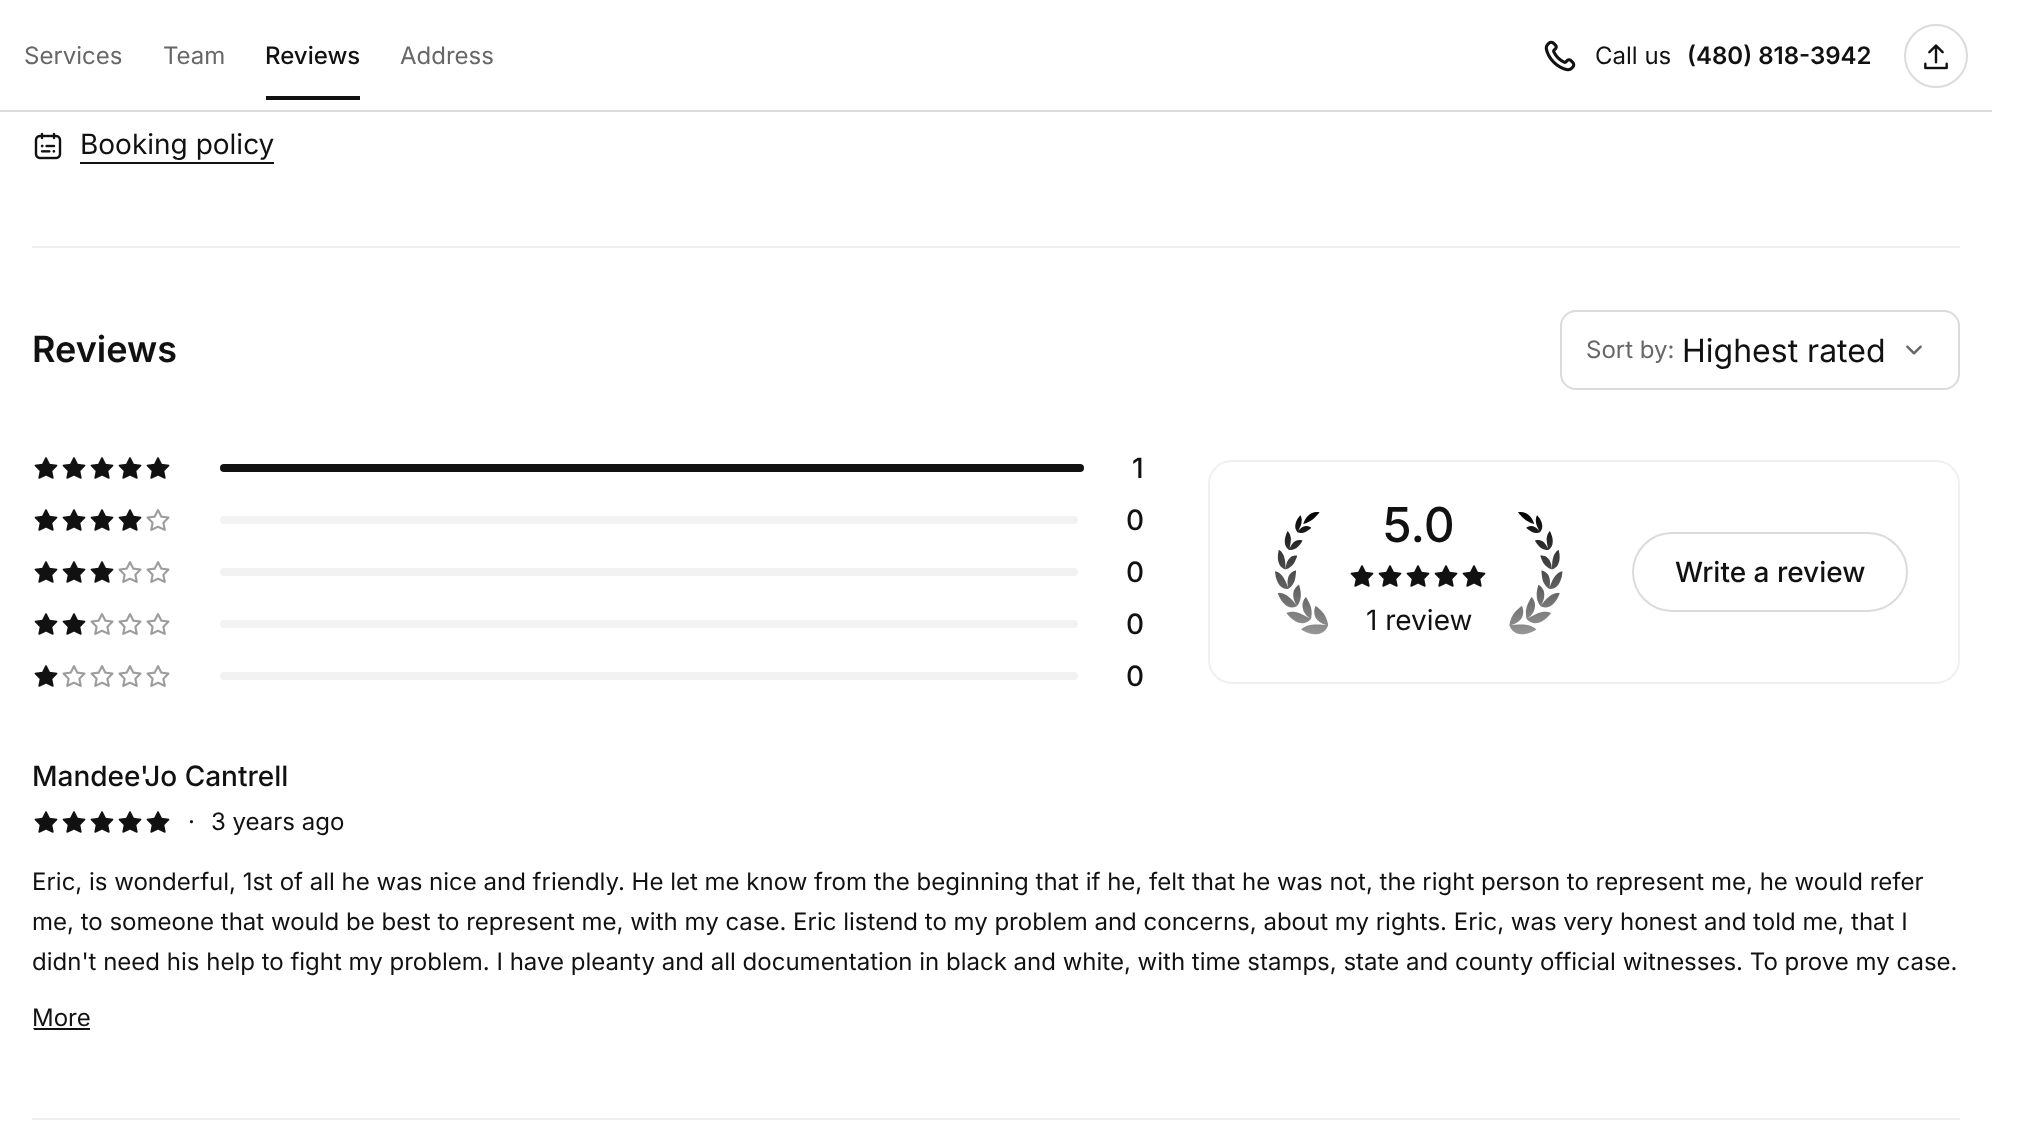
async function draw(canvas) {
  canvas.width = 2022;
  canvas.height = 1124;
  const ctx = canvas.getContext('2d');
  ctx.miterLimit = 4;
  ctx.fontKerning = 'normal';
  function label(s, x, y, font, color) {
    ctx.font = font;
    ctx.fillStyle = color;
    ctx.fillText(s, x, y);
  }
  function rect(x, y, w, h, color) {
    ctx.fillStyle = color;
    ctx.fillRect(x, y, w, h);
  }
  function roundedRect(x, y, w, h, r, color) {
    ctx.fillStyle = color;
    ctx.beginPath();
    ctx.roundRect(x, y, w, h, r);
    ctx.fill();
  }
  async function image(src, x, y, w, h) {
    const img = new Image();
    img.src = src;
    await img.decode();
    ctx.drawImage(img, x, y, w, h);
  }

  rect(0, 0, 2022, 1124, '#fff');
  rect(0, 110, 1992, 2, '#dbdbdb');
  label('Services', 24, 64, '24px Inter', '#676767');
  label('Team', 163, 64, '24px Inter', '#676767');
  label('Reviews', 265, 64, '500 24px Inter', '#111');
  rect(266, 96, 94, 4, '#111');
  label('Address', 400, 64, '24px Inter', '#676767');
  await image('assets/img1.png', 1544, 40, 32, 32);
  label('Call us', 1595, 64, '24px Inter', '#111');
  label('(480) 818-3942', 1687, 64, '600 24px Inter', '#111');
  ctx.beginPath();
  ctx.arc(1936, 56, 31, 0, 2 * Math.PI);
  ctx.strokeStyle = '#dbdbdb';
  ctx.lineWidth = 2;
  ctx.stroke();
  await image('assets/img2.png', 1924, 44, 24, 26);
  await image('assets/img3.png', 34, 132, 28, 28);
  label('Booking policy', 80, 154, '28px Inter', '#111');
  rect(80, 162, 194, 2, '#111');
  rect(32, 246, 1928, 2, '#f0f0f0');
  label('Reviews', 32, 362, '600 36px Inter', '#111');
  await image('assets/img4.png', 1906, 345, 16, 10);
  ctx.beginPath();
  ctx.roundRect(1561, 311, 398, 78, 15);
  ctx.stroke();
  label('Sort by:', 1586, 358, '24px Inter', '#676767');
  label('Highest rated', 1682, 362, '32px Inter', '#111');
  await image('assets/img5.png', 34, 457, 24, 22);
  await image('assets/img5.png', 62, 457, 24, 22);
  await image('assets/img5.png', 90, 457, 24, 22);
  await image('assets/img5.png', 118, 457, 24, 22);
  await image('assets/img5.png', 146, 457, 24, 22);
  roundedRect(220, 464, 864, 8, 4, '#111');
  label('1', 1132, 478, '500 28px Inter', '#111');
  await image('assets/img5.png', 34, 509, 24, 22);
  await image('assets/img5.png', 62, 509, 24, 22);
  await image('assets/img5.png', 90, 509, 24, 22);
  await image('assets/img5.png', 118, 509, 24, 22);
  await image('assets/img6.png', 146, 509, 24, 22);
  roundedRect(220, 516, 858, 8, 4, '#f2f2f2');
  label('0', 1126, 530, '500 28px Inter', '#111');
  await image('assets/img5.png', 34, 561, 24, 22);
  await image('assets/img5.png', 62, 561, 24, 22);
  await image('assets/img5.png', 90, 561, 24, 22);
  await image('assets/img6.png', 118, 561, 24, 22);
  await image('assets/img6.png', 146, 561, 24, 22);
  roundedRect(220, 568, 858, 8, 4, '#f2f2f2');
  label('0', 1126, 582, '500 28px Inter', '#111');
  await image('assets/img5.png', 34, 613, 24, 22);
  await image('assets/img5.png', 62, 613, 24, 22);
  await image('assets/img6.png', 90, 613, 24, 22);
  await image('assets/img6.png', 118, 613, 24, 22);
  await image('assets/img6.png', 146, 613, 24, 22);
  roundedRect(220, 620, 858, 8, 4, '#f2f2f2');
  label('0', 1126, 634, '500 28px Inter', '#111');
  await image('assets/img5.png', 34, 665, 24, 22);
  await image('assets/img6.png', 62, 665, 24, 22);
  await image('assets/img6.png', 90, 665, 24, 22);
  await image('assets/img6.png', 118, 665, 24, 22);
  await image('assets/img6.png', 146, 665, 24, 22);
  roundedRect(220, 672, 858, 8, 4, '#f2f2f2');
  label('0', 1126, 686, '500 28px Inter', '#111');
  ctx.beginPath();
  ctx.roundRect(1209, 461, 750, 222, 23);
  ctx.strokeStyle = '#f0f0f0';
  ctx.stroke();
  await image('assets/img7.png', 1275, 512, 53, 123);
  label('5.0', 1382, 542, '500 48px Inter', '#111');
  await image('assets/img5.png', 1350, 565, 24, 22);
  await image('assets/img5.png', 1378, 565, 24, 22);
  await image('assets/img5.png', 1406, 565, 24, 22);
  await image('assets/img5.png', 1434, 565, 24, 22);
  await image('assets/img5.png', 1462, 565, 24, 22);
  label('1 review', 1366, 630, '28px Inter', '#111');
  await image('assets/img8.png', 1509, 512, 54, 123);
  ctx.beginPath();
  ctx.roundRect(1633, 533, 274, 78, 39);
  ctx.strokeStyle = '#dbdbdb';
  ctx.stroke();
  label('Write a review', 1675, 582, '500 28px Inter', '#111');
  label('Mandee\'Jo Cantrell', 32, 786, '500 28px Inter', '#111');
  await image('assets/img5.png', 34, 811, 24, 22);
  await image('assets/img5.png', 62, 811, 24, 22);
  await image('assets/img5.png', 90, 811, 24, 22);
  await image('assets/img5.png', 118, 811, 24, 22);
  await image('assets/img5.png', 146, 811, 24, 22);
  label('·', 188, 830, '24px Inter', '#111');
  label('3 years ago', 211, 830, '24px Inter', '#111');
  label('Eric, is wonderful, 1st of all he was nice and friendly. He let me know from the beginning that if he, felt that he was not, the right person to represent me, he would refer', 32, 890, '24px Inter', '#111');
  label('me, to someone that would be best to represent me, with my case. Eric listend to my problem and concerns, about my rights. Eric, was very honest and told me, that I', 32, 930, '24px Inter', '#111');
  label('didn\'t need his help to fight my problem. I have pleanty and all documentation in black and white, with time stamps, state and county official witnesses. To prove my case.', 32, 970, '24px Inter', '#111');
  label('More', 32, 1026, '24px Inter', '#111');
  ctx.save();
  ctx.beginPath();
  ctx.roundRect(32, 754, 1928, 284, 16);
  ctx.clip();
  rect(32, 1028, 58, 2, '#111');
  ctx.restore();
  rect(32, 1118, 1928, 2, '#f0f0f0');
}

draw(document.querySelector('canvas'));
